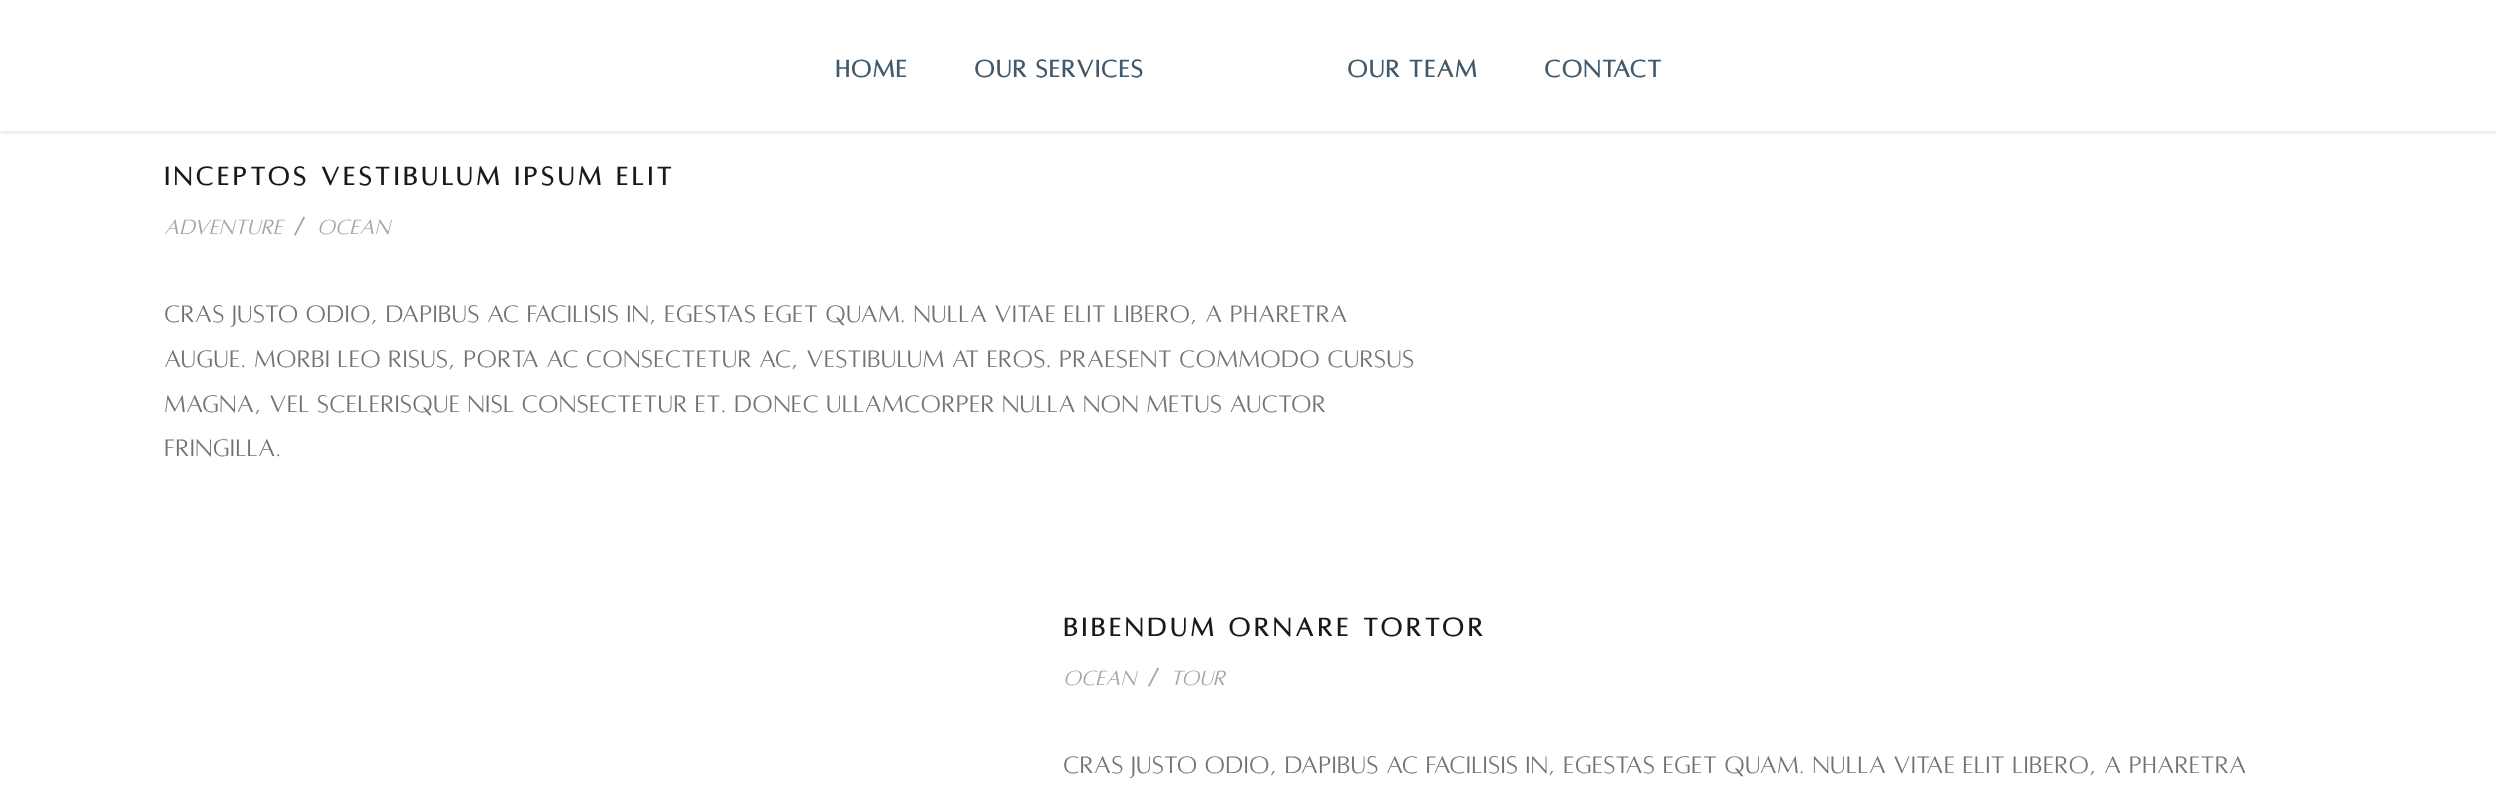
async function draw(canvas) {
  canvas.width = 2496;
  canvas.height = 788;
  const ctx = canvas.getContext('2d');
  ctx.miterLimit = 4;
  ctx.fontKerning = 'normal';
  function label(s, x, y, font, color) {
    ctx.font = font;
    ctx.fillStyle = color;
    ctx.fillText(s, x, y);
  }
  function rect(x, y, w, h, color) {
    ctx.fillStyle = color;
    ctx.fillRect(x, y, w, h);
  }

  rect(0, 0, 2496, 788, '#fff');
  ctx.save();
  ctx.beginPath();
  ctx.rect(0, 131, 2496, 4);
  ctx.clip();
  ctx.fillStyle = '#0000001a';
  ctx.filter = 'blur(2px)';
  ctx.beginPath();
  ctx.rect(0, 2, 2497, 131);
  ctx.fill();
  ctx.filter = 'none';
  ctx.restore();
  ctx.letterSpacing = '0.9px';
  label('HOME', 835, 77, 'bold 26.25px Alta', '#41596b');
  label('OUR SERVICES', 974, 77, 'bold 26.25px Alta', '#41596b');
  label('OUR TEAM', 1347, 77, 'bold 26.25px Alta', '#41596b');
  label('CONTACT', 1544, 77, 'bold 26.25px Alta', '#41596b');
  ctx.letterSpacing = '3.5px';
  label('INCEPTOS VESTIBULUM IPSUM ELIT', 164, 185, 'bold 28px Alta', '#191919');
  ctx.letterSpacing = '0px';
  label('Adventure', 164, 234, 'italic 22.75px Alta', '#a5a5a5');
  label('/', 294, 234, 'italic 22.75px ABeeZee', '#a5a5a5');
  label('Ocean', 317, 234, 'italic 22.75px Alta', '#a5a5a5');
  label('Cras justo odio, dapibus ac facilisis in, egestas eget quam. Nulla vitae elit libero, a pharetra', 164, 322, '26.25px Alta', '#727272');
  label('augue. Morbi leo risus, porta ac consectetur ac, vestibulum at eros. Praesent commodo cursus', 164, 367, '26.25px Alta', '#727272');
  label('magna, vel scelerisque nisl consectetur et. Donec ullamcorper nulla non metus auctor', 164, 412, '26.25px Alta', '#727272');
  label('fringilla.', 164, 456, '26.25px Alta', '#727272');
  ctx.letterSpacing = '3.5px';
  label('BIBENDUM ORNARE TORTOR', 1063, 636, 'bold 28px Alta', '#191919');
  ctx.letterSpacing = '0px';
  label('Ocean', 1063, 685, 'italic 22.75px Alta', '#a5a5a5');
  label('/', 1148, 685, 'italic 22.75px ABeeZee', '#a5a5a5');
  label('Tour', 1170, 685, 'italic 22.75px Alta', '#a5a5a5');
  label('Cras justo odio, dapibus ac facilisis in, egestas eget quam. Nulla vitae elit libero, a pharetra', 1063, 773, '26.25px Alta', '#727272');
}

draw(document.querySelector('canvas'));
